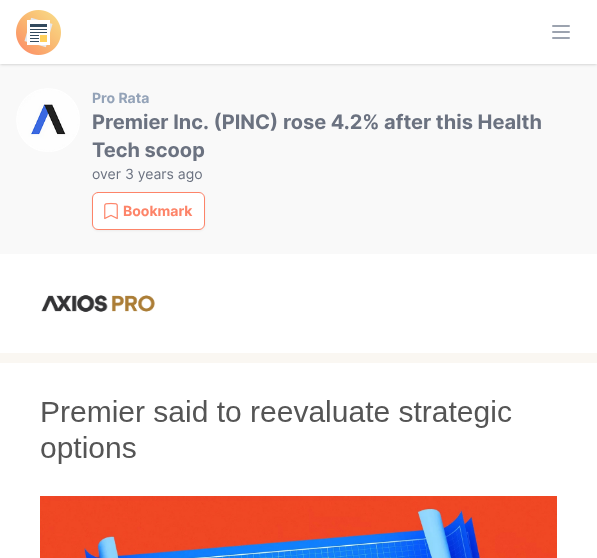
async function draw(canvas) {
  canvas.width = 597;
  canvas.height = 558;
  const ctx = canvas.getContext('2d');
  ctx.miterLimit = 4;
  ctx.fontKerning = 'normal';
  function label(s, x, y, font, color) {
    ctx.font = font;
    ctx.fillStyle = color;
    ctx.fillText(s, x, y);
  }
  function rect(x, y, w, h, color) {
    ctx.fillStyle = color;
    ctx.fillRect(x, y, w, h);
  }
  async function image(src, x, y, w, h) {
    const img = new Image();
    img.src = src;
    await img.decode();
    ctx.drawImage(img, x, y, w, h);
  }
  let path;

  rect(0, 0, 597, 558, '#f9f9f9');
  ctx.fillStyle = '#0000001a';
  ctx.filter = 'blur(1px)';
  ctx.beginPath();
  ctx.rect(1, 2, 595, 62);
  ctx.fill();
  ctx.filter = 'none';
  ctx.filter = 'blur(1.5px)';
  ctx.beginPath();
  ctx.rect(0, 1, 597, 64);
  ctx.fill();
  ctx.filter = 'none';
  rect(0, 0, 597, 64, '#fff');
  await image('assets/img1.png', 16, 10, 45, 45);
  path = new Path2D('M553 26H569M553 32H569M553 38H569');
  ctx.strokeStyle = '#9ca3af';
  ctx.lineWidth = 2;
  ctx.lineCap = 'round';
  ctx.lineJoin = 'round';
  ctx.stroke(path);
  await image('assets/img2.png', 16, 88, 64, 64);
  label('Pro Rata', 92, 103, 'bold 14px Inter', '#94a3b8');
  label('Premier Inc. (PINC) rose 4.2% after this Health', 92, 129, 'bold 20px Inter', '#6b7280');
  label('Tech scoop', 92, 157, 'bold 20px Inter', '#6b7280');
  label('over 3 years ago', 92, 179, '14px Inter', '#6b7280');
  ctx.fillStyle = '#0000000d';
  ctx.filter = 'blur(1px)';
  ctx.beginPath();
  ctx.roundRect(92, 193, 113, 38, 6);
  ctx.fill();
  ctx.filter = 'none';
  ctx.fillStyle = '#fff';
  ctx.beginPath();
  ctx.roundRect(92.5, 192.5, 112, 37, 5.5);
  ctx.fill();
  ctx.strokeStyle = '#fd8469';
  ctx.lineWidth = 1;
  ctx.lineJoin = 'miter';
  ctx.stroke();
  await image('assets/img3.png', 104, 202, 14, 18);
  label('Bookmark', 123, 216, 'bold 14px Inter', '#fd8469');
  rect(0, 254, 597, 41, '#fff');
  await image('assets/img4.png', 0, 295, 597, 263);
}

draw(document.querySelector('canvas'));
